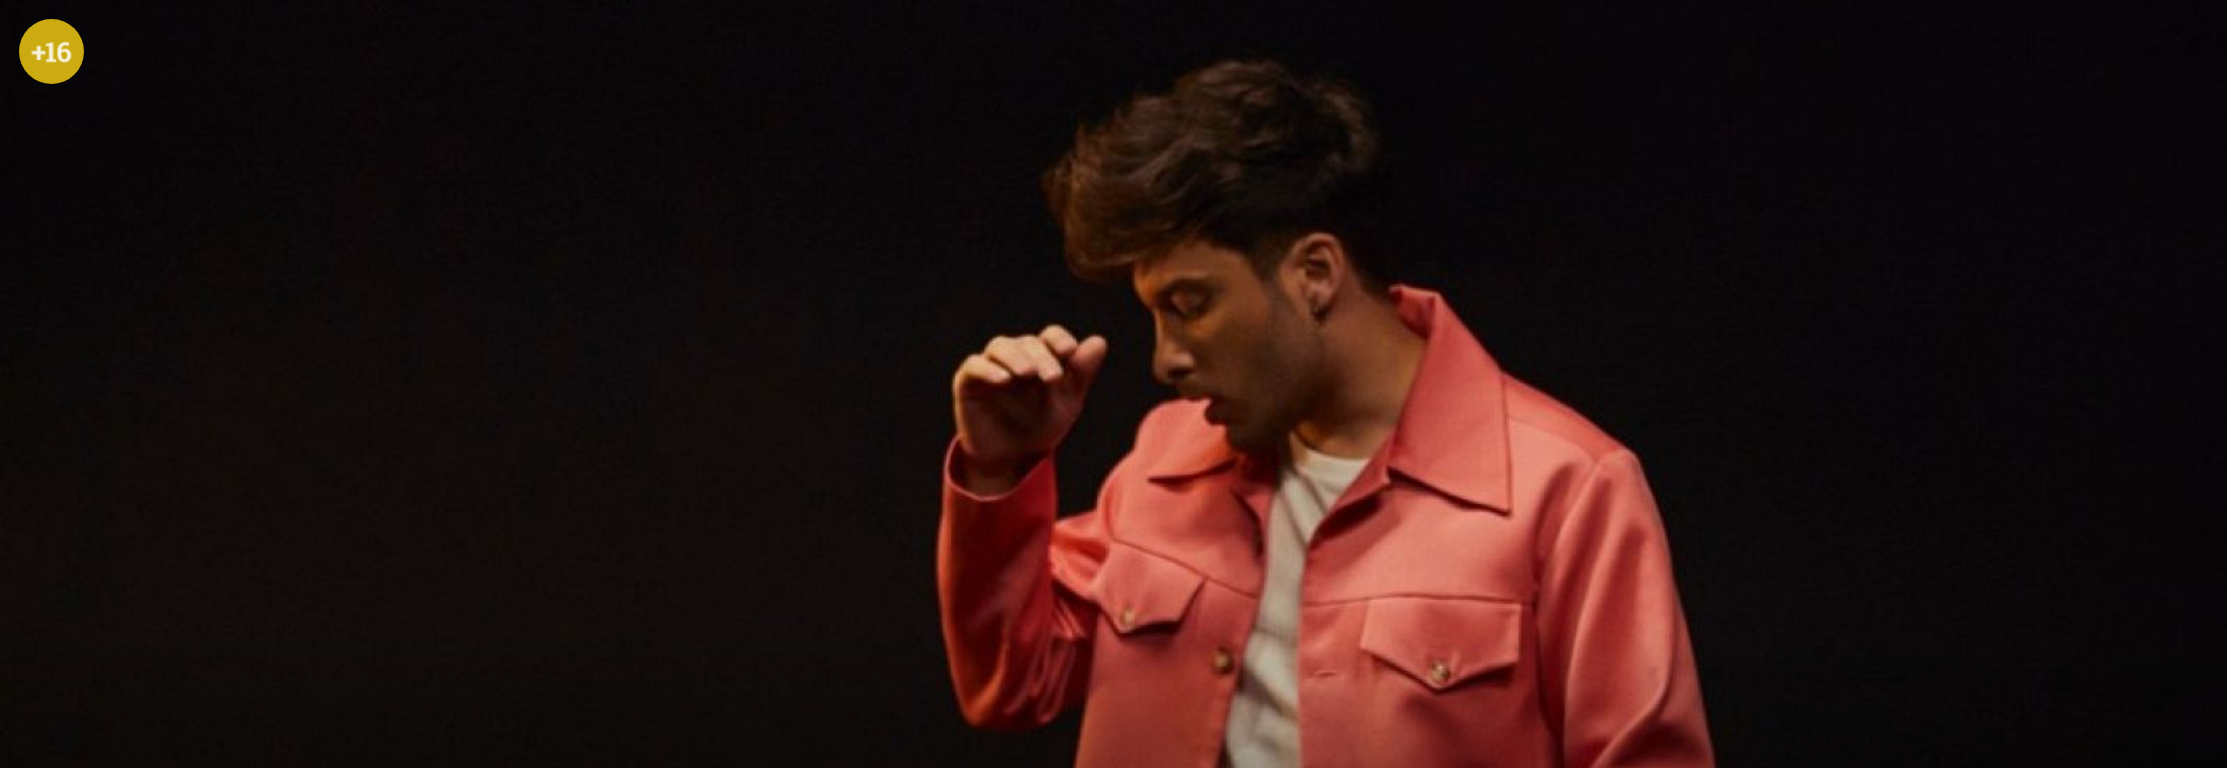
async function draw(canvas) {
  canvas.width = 2227;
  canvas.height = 768;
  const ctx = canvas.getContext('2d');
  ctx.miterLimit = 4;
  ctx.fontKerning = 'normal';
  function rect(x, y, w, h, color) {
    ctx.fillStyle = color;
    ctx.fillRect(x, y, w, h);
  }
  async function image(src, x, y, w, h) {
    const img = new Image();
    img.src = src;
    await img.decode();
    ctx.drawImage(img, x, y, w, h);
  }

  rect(0, 0, 2227, 768, '#fff');
  await image('assets/img1.png', 0, 0, 2227, 768);
  ctx.fillStyle = '#ca1';
  ctx.beginPath();
  ctx.arc(51.5, 51.5, 32.5, 0, 2 * Math.PI);
  ctx.fill();
  await image('assets/img2.png', 31, 41, 41, 22);
}

draw(document.querySelector('canvas'));
